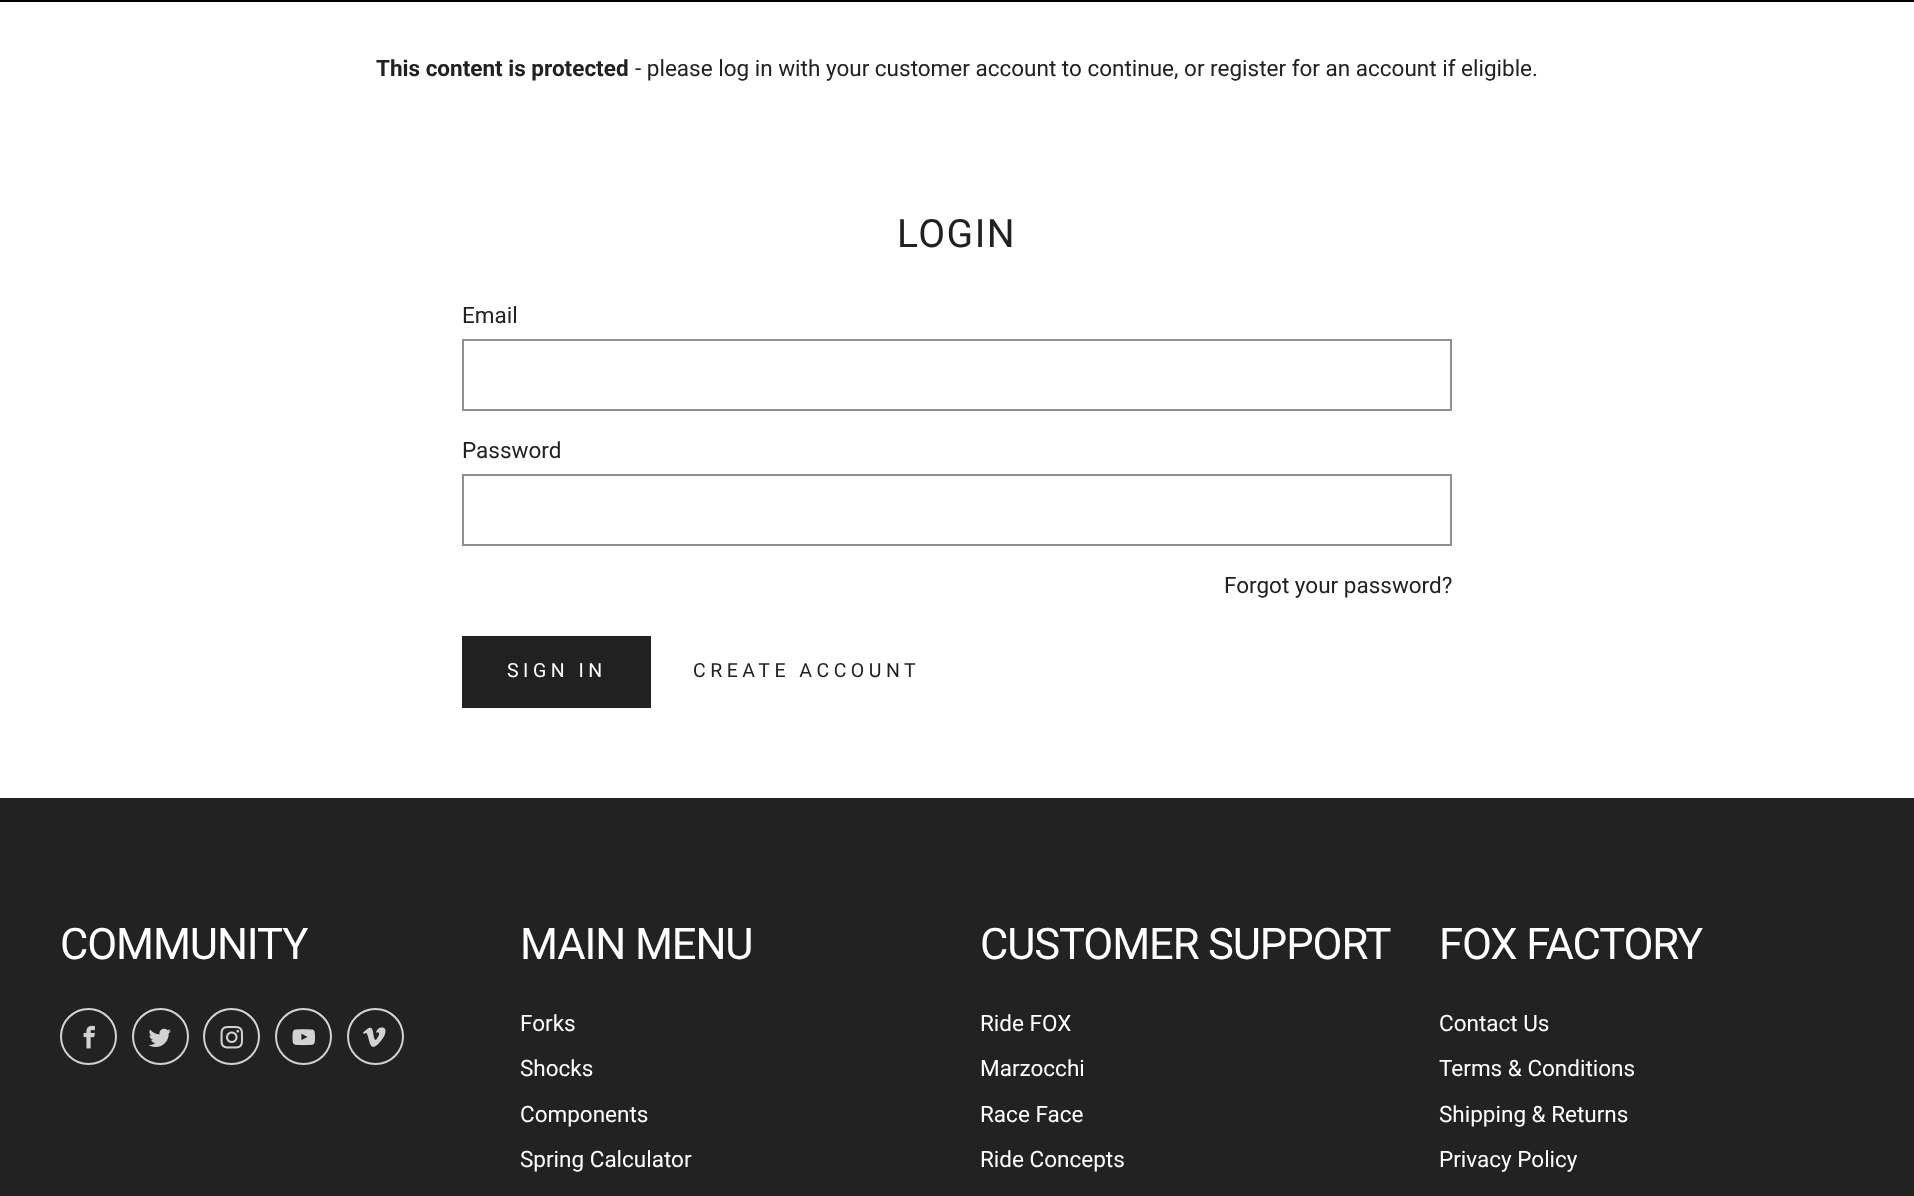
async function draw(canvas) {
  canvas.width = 1914;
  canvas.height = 1196;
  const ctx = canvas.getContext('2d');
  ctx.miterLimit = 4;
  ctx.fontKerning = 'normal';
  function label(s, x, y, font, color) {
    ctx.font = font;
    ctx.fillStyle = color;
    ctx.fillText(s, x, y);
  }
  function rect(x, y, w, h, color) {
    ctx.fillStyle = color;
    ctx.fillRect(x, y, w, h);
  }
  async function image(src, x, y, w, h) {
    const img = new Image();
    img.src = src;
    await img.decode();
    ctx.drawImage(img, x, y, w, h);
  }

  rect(0, 0, 1914, 1196, '#fff');
  rect(0, 0, 1914, 2, '#000');
  label('This content is protected', 376, 76, 'bold 22.5px Roboto', '#212121');
  label('- please log in with your customer account to continue, or register for an account if eligible.', 635, 76, '22.5px Roboto', '#212121');
  ctx.letterSpacing = '1.5px';
  label('LOGIN', 897, 247, '39px Roboto', '#212121');
  ctx.letterSpacing = '0px';
  label('Email', 462, 323, '22.5px Roboto', '#212121');
  ctx.strokeStyle = '#909090';
  ctx.lineWidth = 2;
  ctx.strokeRect(463, 340, 988, 70);
  label('Password', 462, 458, '22.5px Roboto', '#212121');
  ctx.strokeRect(463, 475, 988, 70);
  label('Forgot your password?', 1224, 593, '22.5px Roboto', '#212121');
  rect(462, 636, 189, 72, '#212121');
  ctx.letterSpacing = '4.5px';
  label('SIGN IN', 507, 677, '19.5px Roboto', '#fff');
  label('CREATE ACCOUNT', 693, 677, '19.5px Roboto', '#212121');
  rect(0, 798, 1914, 398, '#222');
  ctx.letterSpacing = '-1.1px';
  label('COMMUNITY', 60, 959, '43.5px Roboto', '#fff');
  ctx.beginPath();
  ctx.arc(88.5, 1036.5, 27.5, 0, 2 * Math.PI);
  ctx.strokeStyle = '#d3d3d3';
  ctx.stroke();
  await image('assets/img1.png', 83, 1025, 12, 24);
  ctx.beginPath();
  ctx.arc(160.5, 1036.5, 27.5, 0, 2 * Math.PI);
  ctx.stroke();
  await image('assets/img2.png', 148, 1028, 23, 19);
  ctx.beginPath();
  ctx.arc(231.5, 1036.5, 27.5, 0, 2 * Math.PI);
  ctx.stroke();
  await image('assets/img3.png', 220, 1026, 23, 23);
  ctx.beginPath();
  ctx.arc(303.5, 1036.5, 27.5, 0, 2 * Math.PI);
  ctx.stroke();
  await image('assets/img4.png', 292, 1029, 23, 17);
  ctx.beginPath();
  ctx.arc(375.5, 1036.5, 27.5, 0, 2 * Math.PI);
  ctx.stroke();
  await image('assets/img5.png', 363, 1027, 23, 20);
  label('MAIN MENU', 520, 959, '43.5px Roboto', '#fff');
  ctx.letterSpacing = '0px';
  label('Forks', 520, 1031, '22.5px Roboto', '#fff');
  label('Shocks', 520, 1076, '22.5px Roboto', '#fff');
  label('Components', 520, 1122, '22.5px Roboto', '#fff');
  label('Spring Calculator', 520, 1167, '22.5px Roboto', '#fff');
  ctx.letterSpacing = '-1.1px';
  label('CUSTOMER SUPPORT', 980, 959, '43.5px Roboto', '#fff');
  ctx.letterSpacing = '0px';
  label('Ride FOX', 980, 1031, '22.5px Roboto', '#fff');
  label('Marzocchi', 980, 1076, '22.5px Roboto', '#fff');
  label('Race Face', 980, 1122, '22.5px Roboto', '#fff');
  label('Ride Concepts', 980, 1167, '22.5px Roboto', '#fff');
  ctx.letterSpacing = '-1.1px';
  label('FOX FACTORY', 1439, 959, '43.5px Roboto', '#fff');
  ctx.letterSpacing = '0px';
  label('Contact Us', 1439, 1031, '22.5px Roboto', '#fff');
  label('Terms & Conditions', 1439, 1076, '22.5px Roboto', '#fff');
  label('Shipping & Returns', 1439, 1122, '22.5px Roboto', '#fff');
  label('Privacy Policy', 1439, 1167, '22.5px Roboto', '#fff');
}

draw(document.querySelector('canvas'));
